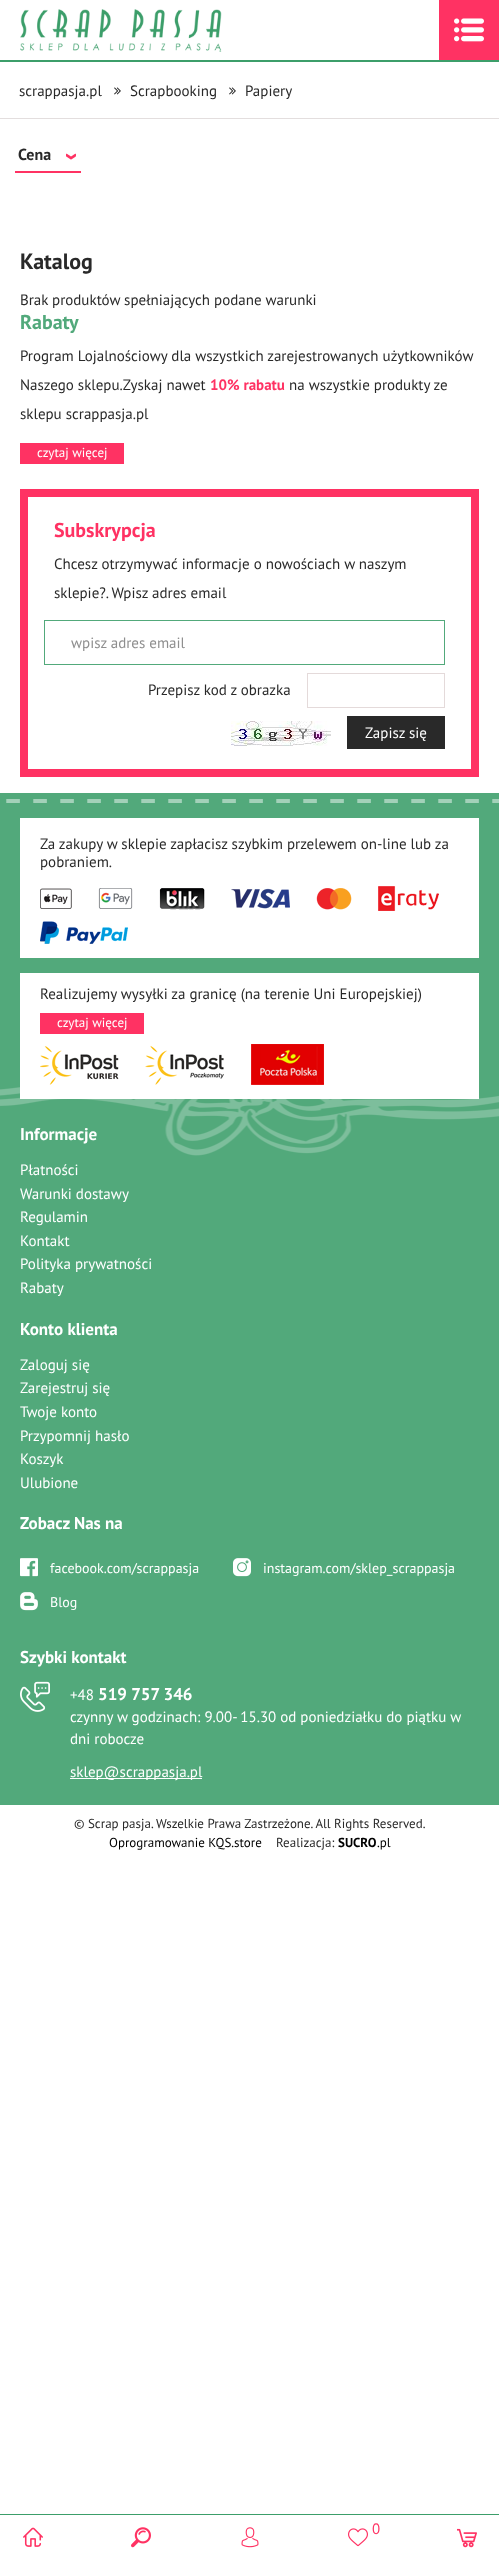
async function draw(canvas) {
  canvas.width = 499;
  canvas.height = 2559;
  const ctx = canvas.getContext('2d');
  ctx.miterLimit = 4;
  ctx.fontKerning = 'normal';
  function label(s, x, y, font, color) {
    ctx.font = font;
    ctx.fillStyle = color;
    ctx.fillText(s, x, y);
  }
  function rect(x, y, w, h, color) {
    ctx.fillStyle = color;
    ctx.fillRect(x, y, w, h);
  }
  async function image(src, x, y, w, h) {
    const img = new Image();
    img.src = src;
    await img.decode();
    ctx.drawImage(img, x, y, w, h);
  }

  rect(0, 0, 499, 2559, '#fff');
  await image('assets/img1.png', 20, 9, 202, 43);
  rect(439, 0, 60, 60, '#ff3263');
  await image('assets/img2.png', 454, 18, 30, 24);
  rect(0, 60, 499, 2, '#3c9e6a');
  rect(0, 118, 499, 1, '#e3dede');
  label('scrappasja.pl', 19, 96, '15px PT Sans', '#292929');
  await image('assets/img3.png', 114, 87, 7, 8);
  label('Scrapbooking', 130, 96, '15px PT Sans', '#292929');
  await image('assets/img3.png', 229, 87, 7, 8);
  label('Papiery', 245, 96, '15px PT Sans', '#292929');
  rect(15, 171, 66, 2, '#ff3263');
  label('Cena', 18, 160, 'bold 16px PT Sans', '#292929');
  await image('assets/img4.png', 66, 153, 10, 7);
  label('Katalog', 20, 269, 'bold 22px PT Sans', '#292929');
  label('Brak produktów spełniających podane warunki', 20, 305, '15px PT Sans', '#292929');
  label('Rabaty', 20, 329, 'bold 20px PT Sans', '#52a97b');
  label('Program Lojalnościowy dla wszystkich zarejestrowanych użytkowników', 20, 361, '15px PT Sans', '#292929');
  label('Naszego sklepu.Zyskaj nawet', 20, 390, '15px PT Sans', '#292929');
  label('10% rabatu', 210, 390, 'bold 15px PT Sans', '#ff3263');
  label('na wszystkie produkty ze', 289, 390, '15px PT Sans', '#292929');
  label('sklepu scrappasja.pl', 20, 419, '15px PT Sans', '#292929');
  rect(20, 443, 104, 21, '#ff3263');
  label('czytaj więcej', 37, 457, '13px PT Sans', '#fff');
  ctx.strokeStyle = '#ff3263';
  ctx.lineWidth = 8;
  ctx.strokeRect(24, 493, 451, 280);
  label('Subskrypcja', 54, 537, 'bold 20px PT Sans', '#ff3263');
  label('Chcesz otrzymywać informacje o nowościach w naszym', 54, 569, '15px PT Sans', '#292929');
  label('sklepie?. Wpisz adres email', 54, 598, '15px PT Sans', '#292929');
  ctx.strokeStyle = '#52a97b';
  ctx.lineWidth = 1;
  ctx.strokeRect(44.5, 620.5, 400, 44);
  label('wpisz adres email', 71, 648, '15px PT Sans', '#8e8e8e');
  label('Przepisz kod z obrazka', 148, 695, '15px PT Sans', '#292929');
  ctx.strokeStyle = '#e4dada';
  ctx.strokeRect(307.5, 673.5, 137, 34);
  await image('assets/img5.png', 231, 721, 100, 25);
  rect(347, 716, 98, 33, '#292929');
  label('Zapisz się', 365, 738, '15px PT Sans', '#fff');
  rect(0, 793, 499, 1012, '#52a97b');
  await image('assets/img6.png', 6, 799, 493, 4);
  rect(20, 818, 459, 140, '#fff');
  label('Za zakupy w sklepie zapłacisz szybkim przelewem on-line lub za', 40, 849, '15px PT Sans', '#292929');
  label('pobraniem.', 40, 867, '15px PT Sans', '#292929');
  await image('assets/img7.png', 40, 888, 32, 21);
  await image('assets/img8.png', 98, 888, 35, 21);
  await image('assets/img9.png', 159, 888, 46, 22);
  await image('assets/img10.png', 231, 888, 59, 21);
  await image('assets/img11.png', 316, 888, 36, 22);
  await image('assets/img12.png', 378, 886, 61, 25);
  await image('assets/img13.png', 40, 921, 88, 23);
  await image('assets/img17.png', 0, 1087, 499, 69);
  rect(20, 973, 459, 126, '#fff');
  label('Realizujemy wysyłki za granicę (na terenie Uni Europejskiej)', 40, 999, '15px PT Sans', '#292929');
  rect(40, 1013, 104, 21, '#ff3263');
  label('czytaj więcej', 57, 1027, '13px PT Sans', '#fff');
  await image('assets/img14.png', 40, 1046, 79, 39);
  await image('assets/img15.png', 145, 1045, 79, 40);
  await image('assets/img16.png', 251, 1044, 73, 41);
  label('Informacje', 20, 1140, 'bold 17px PT Sans', '#fff');
  label('Płatności', 20, 1175, '15px PT Sans', '#fff');
  label('Warunki dostawy', 20, 1199, '15px PT Sans', '#fff');
  label('Regulamin', 20, 1222, '15px PT Sans', '#fff');
  label('Kontakt', 20, 1246, '15px PT Sans', '#fff');
  label('Polityka prywatności', 20, 1269, '15px PT Sans', '#fff');
  label('Rabaty', 20, 1293, '15px PT Sans', '#fff');
  label('Konto klienta', 20, 1335, 'bold 17px PT Sans', '#fff');
  label('Zaloguj się', 20, 1370, '15px PT Sans', '#fff');
  label('Zarejestruj się', 20, 1393, '15px PT Sans', '#fff');
  label('Twoje konto', 20, 1417, '15px PT Sans', '#fff');
  label('Przypomnij hasło', 20, 1441, '15px PT Sans', '#fff');
  label('Koszyk', 20, 1464, '15px PT Sans', '#fff');
  label('Ulubione', 20, 1488, '15px PT Sans', '#fff');
  label('Zobacz Nas na', 20, 1529, 'bold 17px PT Sans', '#fff');
  await image('assets/img18.png', 20, 1558, 18, 19);
  label('facebook.com/scrappasja', 50, 1573, '14px PT Sans', '#fff');
  await image('assets/img19.png', 233, 1558, 18, 19);
  label('instagram.com/sklep_scrappasja', 263, 1573, '14px PT Sans', '#fff');
  await image('assets/img20.png', 20, 1592, 18, 19);
  label('Blog', 50, 1607, '14px PT Sans', '#fff');
  label('Szybki kontakt', 20, 1663, 'bold 17px PT Sans', '#fff');
  await image('assets/img21.png', 20, 1681, 30, 31);
  label('+48', 70, 1700, '15px PT Sans', '#fff');
  label('519 757 346', 98, 1700, 'bold 17px PT Sans', '#fff');
  label('czynny w godzinach: 9.00- 15.30 od poniedziałku do piątku w', 70, 1722, '15px PT Sans', '#fff');
  label('dni robocze', 70, 1744, '15px PT Sans', '#fff');
  rect(70, 1778, 132, 1, '#fff');
  label('sklep@scrappasja.pl', 70, 1777, '15px PT Sans', '#fff');
  label('© Scrap pasja. Wszelkie Prawa Zastrzeżone. All Rights Reserved.', 74, 1828, '13px PT Sans', '#292929');
  label('Oprogramowanie KQS.store', 109, 1847, '13px PT Sans', '#000');
  label('Realizacja:', 276, 1847, '13px PT Sans', '#292929');
  label('SUCRO', 338, 1847, 'bold 13px PT Sans', '#000');
  label('.pl', 377, 1847, '13px PT Sans', '#000');
  rect(0, 2514, 499, 1, '#3c9e6a');
  await image('assets/img22.png', 23, 2527, 20, 20);
  await image('assets/img23.png', 131, 2527, 20, 21);
  await image('assets/img24.png', 241, 2527, 18, 21);
  await image('assets/img25.png', 348, 2528, 20, 19);
  label('0', 372, 2534, '15px PT Sans', '#ff3263');
  await image('assets/img26.png', 457, 2528, 20, 20);
}

draw(document.querySelector('canvas'));
